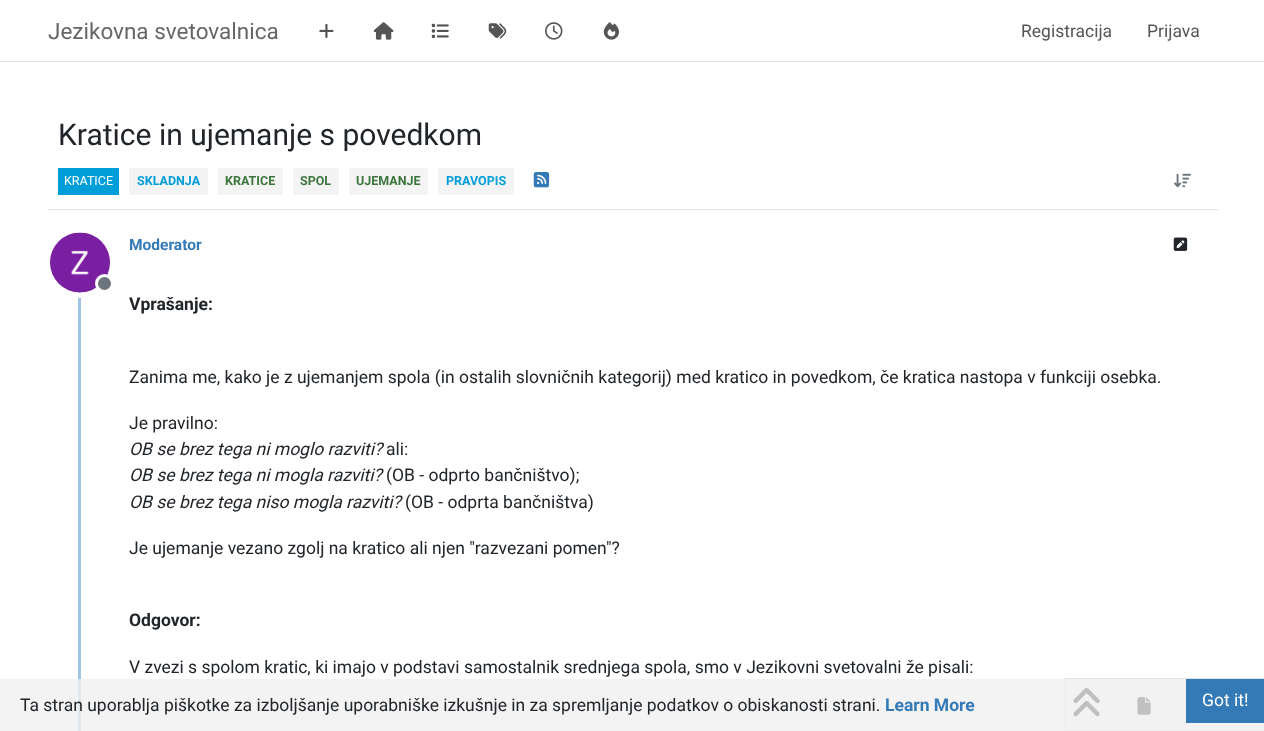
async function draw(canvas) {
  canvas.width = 1264;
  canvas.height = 731;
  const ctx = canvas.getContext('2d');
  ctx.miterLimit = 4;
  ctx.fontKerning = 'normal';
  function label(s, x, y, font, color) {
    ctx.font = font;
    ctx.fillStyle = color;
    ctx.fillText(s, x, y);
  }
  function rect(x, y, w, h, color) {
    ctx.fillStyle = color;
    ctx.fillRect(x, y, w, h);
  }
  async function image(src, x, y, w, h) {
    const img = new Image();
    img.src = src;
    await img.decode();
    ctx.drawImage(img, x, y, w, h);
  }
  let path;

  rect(0, 0, 1264, 731, '#fff');
  ctx.fillStyle = '#dee2e6';
  path = new Path2D('M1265 62H0L1 61H1264Z');
  ctx.fill(path);
  label('Jezikovna svetovalnica', 48, 39, '22.5px Roboto', '#666');
  await image('assets/img1.png', 319, 23, 15, 15);
  await image('assets/img2.png', 373, 22, 21, 18);
  await image('assets/img3.png', 431, 23, 18, 16);
  await image('assets/img4.png', 488, 23, 19, 16);
  await image('assets/img5.png', 545, 22, 18, 18);
  await image('assets/img6.png', 603, 22, 16, 18);
  label('Registracija', 1021, 37, '17.5px Roboto', '#555');
  label('Prijava', 1147, 37, '17.5px Roboto', '#555');
  rect(48, 209, 1170, 1, '#dee2e6');
  label('Kratice in ujemanje s povedkom', 58, 145, '30px Roboto', '#212529');
  rect(58, 168, 61, 27, '#009ed8');
  label('KRATICE', 64, 185, '12.5px Roboto', '#fff');
  rect(129, 168, 79, 27, '#f4f4f4');
  label('SKLADNJA', 137, 185, 'bold 12.5px Roboto', '#009ed8');
  rect(218, 168, 65, 27, '#f4f4f4');
  label('KRATICE', 225, 185, 'bold 12.5px Roboto', '#3c763d');
  rect(293, 168, 46, 27, '#f4f4f4');
  label('SPOL', 300, 185, 'bold 12.5px Roboto', '#3c763d');
  rect(349, 168, 79, 27, '#f4f4f4');
  label('UJEMANJE', 356, 185, 'bold 12.5px Roboto', '#3c763d');
  rect(438, 168, 76, 27, '#f4f4f4');
  label('PRAVOPIS', 446, 185, 'bold 12.5px Roboto', '#009ed8');
  await image('assets/img7.png', 533, 172, 17, 16);
  await image('assets/img8.png', 1174, 173, 17, 15);
  rect(78, 292, 3, 439, '#a0c4e4');
  ctx.beginPath();
  ctx.arc(80, 263, 32.5, 0, 2 * Math.PI);
  ctx.strokeStyle = '#fff';
  ctx.lineWidth = 5;
  ctx.stroke();
  await image('assets/img9.png', 50, 232, 60, 61);
  ctx.fillStyle = '#6c757d';
  ctx.beginPath();
  ctx.arc(104.5, 283.5, 8, 0, 2 * Math.PI);
  ctx.fill();
  ctx.lineWidth = 3;
  ctx.stroke();
  label('Moderator', 129, 250, 'bold 15.5px Roboto', '#337ab7');
  await image('assets/img10.png', 1173, 237, 15, 14);
  label('Vprašanje:', 129, 310, 'bold 17.5px Roboto', '#212529');
  label('Zanima me, kako je z ujemanjem spola (in ostalih slovničnih kategorij) med kratico in povedkom, če kratica nastopa v funkciji osebka.', 129, 383, '17.5px Roboto', '#212529');
  label('Je pravilno:', 129, 429, '17.5px Roboto', '#212529');
  label('OB se brez tega ni moglo razviti?', 129, 455, 'italic 17.5px Roboto', '#212529');
  label('ali:', 386, 455, '17.5px Roboto', '#212529');
  label('OB se brez tega ni mogla razviti?', 129, 481, 'italic 17.5px Roboto', '#212529');
  label('(OB - odprto bančništvo);', 386, 481, '17.5px Roboto', '#212529');
  label('OB se brez tega niso mogla razviti?', 129, 508, 'italic 17.5px Roboto', '#212529');
  label('(OB - odprta bančništva)', 405, 508, '17.5px Roboto', '#212529');
  label('Je ujemanje vezano zgolj na kratico ali njen "razvezani pomen"?', 129, 554, '17.5px Roboto', '#212529');
  label('Odgovor:', 129, 626, 'bold 17.5px Roboto', '#212529');
  label('V zvezi s spolom kratic, ki imajo v podstavi samostalnik srednjega spola, smo v Jezikovni svetovalni že pisali:', 129, 673, '17.5px Roboto', '#212529');
  ctx.fillStyle = '#f8f9fa';
  ctx.beginPath();
  ctx.rect(1064.5, 678.5, 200, 52);
  ctx.fill();
  ctx.strokeStyle = '#dee2e6';
  ctx.lineWidth = 1;
  ctx.stroke();
  await image('assets/img11.png', 1073, 687, 27, 30);
  await image('assets/img12.png', 1137, 697, 14, 18);
  rect(0, 679, 1264, 52, '#f0f0f0cc');
  label('Ta stran uporablja piškotke za izboljšanje uporabniške izkušnje in za spremljanje podatkov o obiskanosti strani.', 20, 711, '17.5px Roboto', '#212529');
  label('Learn More', 885, 711, 'bold 17.5px Roboto', '#337ab7');
  rect(1186, 679, 78, 44, '#337ab7');
  label('Got it!', 1202, 706, '17.5px Roboto', '#fff');
}

draw(document.querySelector('canvas'));
